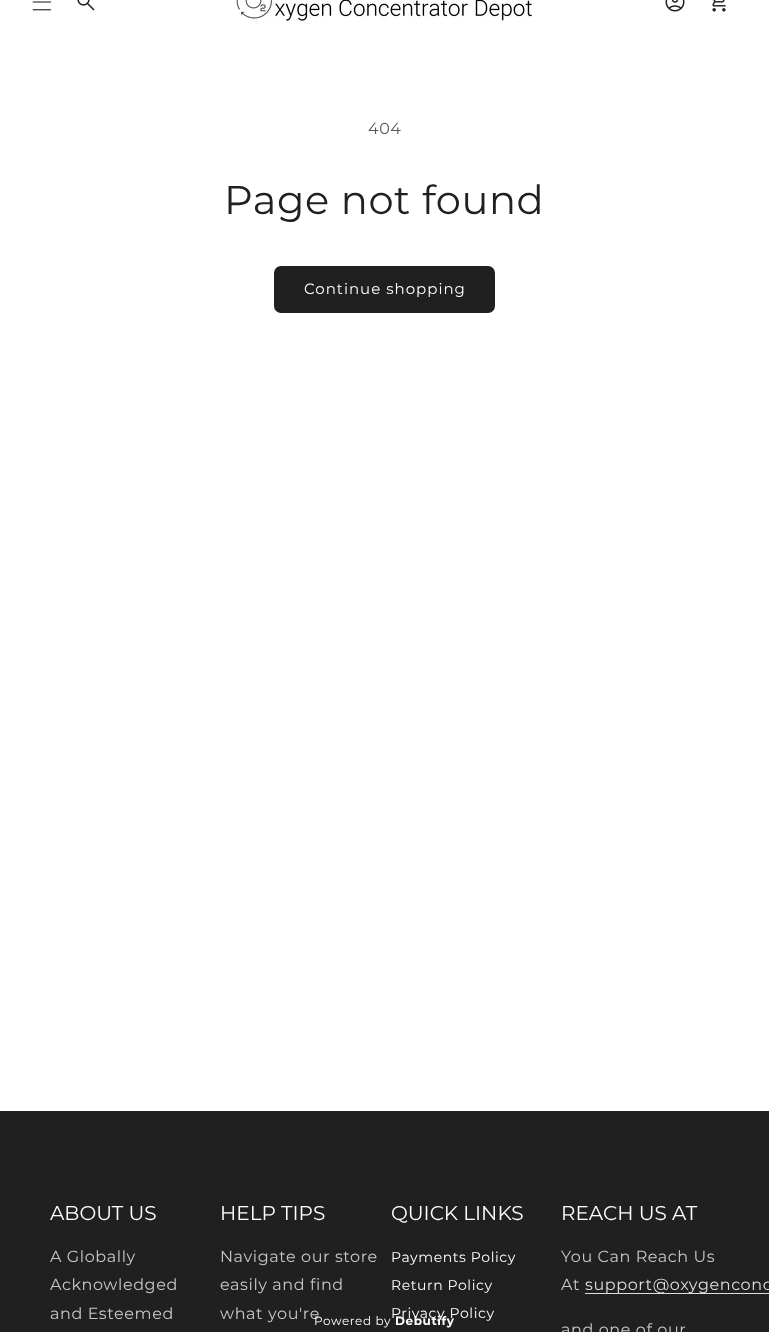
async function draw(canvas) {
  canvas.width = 769;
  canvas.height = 1332;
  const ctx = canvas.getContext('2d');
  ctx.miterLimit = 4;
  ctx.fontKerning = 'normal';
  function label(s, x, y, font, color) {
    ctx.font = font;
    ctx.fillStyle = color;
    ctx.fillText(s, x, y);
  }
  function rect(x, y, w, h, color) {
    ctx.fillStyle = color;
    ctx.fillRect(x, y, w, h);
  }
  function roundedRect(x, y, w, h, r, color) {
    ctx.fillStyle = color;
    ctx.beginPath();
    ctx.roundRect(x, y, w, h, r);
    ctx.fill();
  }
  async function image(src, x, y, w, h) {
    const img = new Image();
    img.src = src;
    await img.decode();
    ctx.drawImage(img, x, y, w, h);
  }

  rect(0, 0, 769, 1332, '#fff');
  await image('assets/img1.png', 32, 1, 20, 10);
  await image('assets/img2.png', 77, 0, 18, 11);
  await image('assets/img3.png', 236, 0, 296, 22);
  await image('assets/img4.png', 665, 0, 20, 12);
  await image('assets/img5.png', 712, 0, 14, 12);
  ctx.letterSpacing = '0.6px';
  label('404', 368, 134, '16px Montserrat', '#585858');
  label('Page not found', 224, 214, '40px Montserrat', '#202020');
  roundedRect(274, 266, 221, 47, 7, '#202020');
  ctx.letterSpacing = '1px';
  label('Continue shopping', 304, 294, '15px Montserrat', '#fff');
  rect(0, 1111, 769, 221, '#202020');
  ctx.letterSpacing = '0px';
  label('ABOUT US', 50, 1220, '20px Montserrat', '#fff');
  ctx.letterSpacing = '0.6px';
  label('A Globally', 50, 1262, '16px Montserrat', '#c7c7c7');
  label('Acknowledged', 50, 1290, '16px Montserrat', '#c7c7c7');
  label('and Esteemed', 50, 1319, '16px Montserrat', '#c7c7c7');
  ctx.letterSpacing = '0px';
  label('HELP TIPS', 220, 1220, '20px Montserrat', '#fff');
  ctx.letterSpacing = '0.6px';
  label('Navigate our store', 220, 1262, '16px Montserrat', '#c7c7c7');
  label('easily and find', 220, 1290, '16px Montserrat', '#c7c7c7');
  label('what you\'re', 220, 1319, '16px Montserrat', '#c7c7c7');
  ctx.letterSpacing = '0px';
  label('QUICK LINKS', 391, 1220, '20px Montserrat', '#fff');
  ctx.letterSpacing = '0.6px';
  label('Payments Policy', 391, 1262, '14px Montserrat', '#fff');
  label('Return Policy', 391, 1290, '14px Montserrat', '#fff');
  label('Privacy Policy', 391, 1318, '14px Montserrat', '#fff');
  ctx.letterSpacing = '0px';
  label('REACH US AT', 561, 1220, '20px Montserrat', '#fff');
  ctx.letterSpacing = '0.6px';
  label('You Can Reach Us', 561, 1262, '16px Montserrat', '#c7c7c7');
  label('At', 561, 1290, '16px Montserrat', '#c7c7c7');
  rect(585, 1293, 184, 1, '#dedede');
  label('support@oxygenconc', 585, 1290, '16px Montserrat', '#dedede');
  label('and one of our', 561, 1335, '16px Montserrat', '#c7c7c7');
  label('Powered by', 314, 1325, '12px Montserrat', '#fff');
  label('Debutify', 395, 1325, 'bold 12px Montserrat', '#fff');
}

draw(document.querySelector('canvas'));
